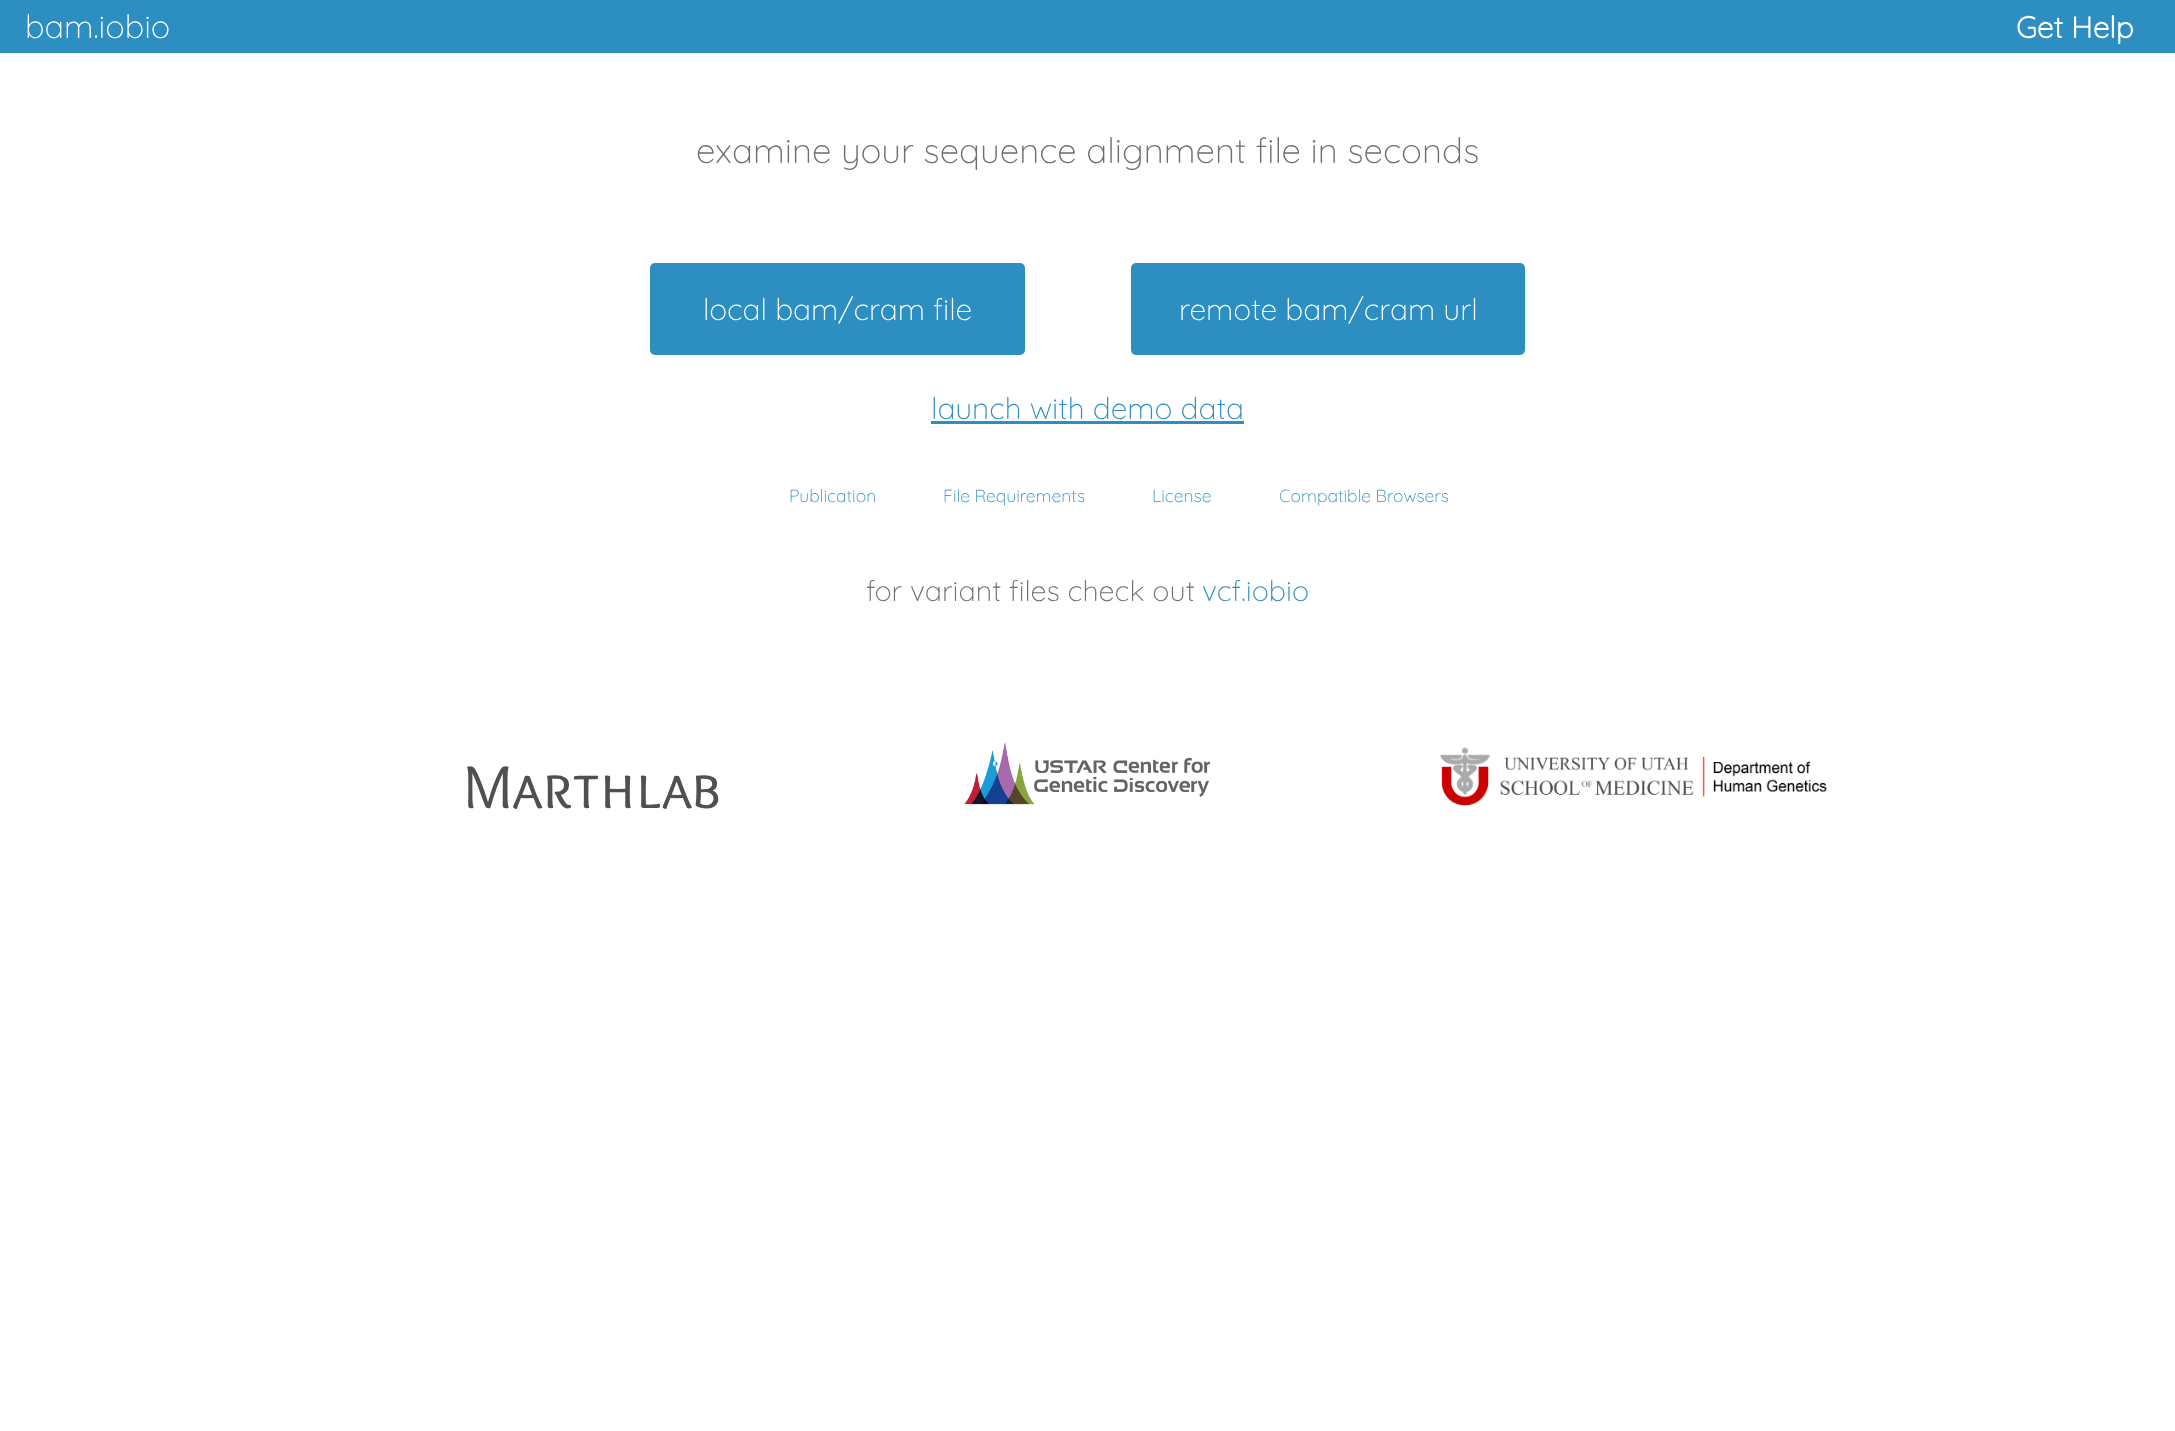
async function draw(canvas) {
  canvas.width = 2175;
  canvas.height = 1431;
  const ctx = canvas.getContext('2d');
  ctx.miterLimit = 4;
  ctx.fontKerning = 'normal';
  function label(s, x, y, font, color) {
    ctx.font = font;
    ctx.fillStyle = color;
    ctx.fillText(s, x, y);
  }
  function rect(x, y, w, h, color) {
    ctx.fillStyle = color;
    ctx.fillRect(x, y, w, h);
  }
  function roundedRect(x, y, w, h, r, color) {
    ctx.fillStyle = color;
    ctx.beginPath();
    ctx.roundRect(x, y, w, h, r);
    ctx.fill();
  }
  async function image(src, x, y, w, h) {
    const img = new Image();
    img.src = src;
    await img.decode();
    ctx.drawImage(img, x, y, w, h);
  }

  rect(0, 0, 2175, 1431, '#fff');
  rect(0, 0, 2175, 53, '#2d8fc1');
  label('bam.iobio', 25, 38, '300 32.5px Quicksand', '#fff');
  label('Get Help', 2016, 38, 'bold 30px Quicksand', '#fff');
  label('examine your sequence alignment file in seconds', 696, 163, '300 35px Quicksand', '#6e6e6e');
  roundedRect(650, 263, 375, 92, 5, '#2d8fc1');
  label('local bam/cram file', 703, 320, '300 30px Quicksand', '#fff');
  roundedRect(1131, 263, 394, 92, 5, '#2d8fc1');
  label('remote bam/cram url', 1179, 320, '300 30px Quicksand', '#fff');
  label('launch with demo data', 931, 419, '300 30px Quicksand', '#2d8fc1');
  rect(931, 421, 313, 3, '#2d8fc1');
  label('Publication', 789, 502, '300 17.5px Quicksand', '#2d8fc1');
  label('File Requirements', 943, 502, '300 17.5px Quicksand', '#2d8fc1');
  label('License', 1152, 502, '300 17.5px Quicksand', '#2d8fc1');
  label('Compatible Browsers', 1279, 502, '300 17.5px Quicksand', '#2d8fc1');
  label('for variant files check out', 866, 601, '300 28.75px Quicksand', '#6e6e6e');
  label('vcf.iobio', 1202, 601, '300 28.75px Quicksand', '#2d8fc1');
  label('Marthlab', 463, 808, '62.5px Overlock SC', '#505050');
  await image('assets/img1.png', 964, 743, 246, 62);
  await image('assets/img2.png', 1440, 747, 387, 59);
}

draw(document.querySelector('canvas'));
